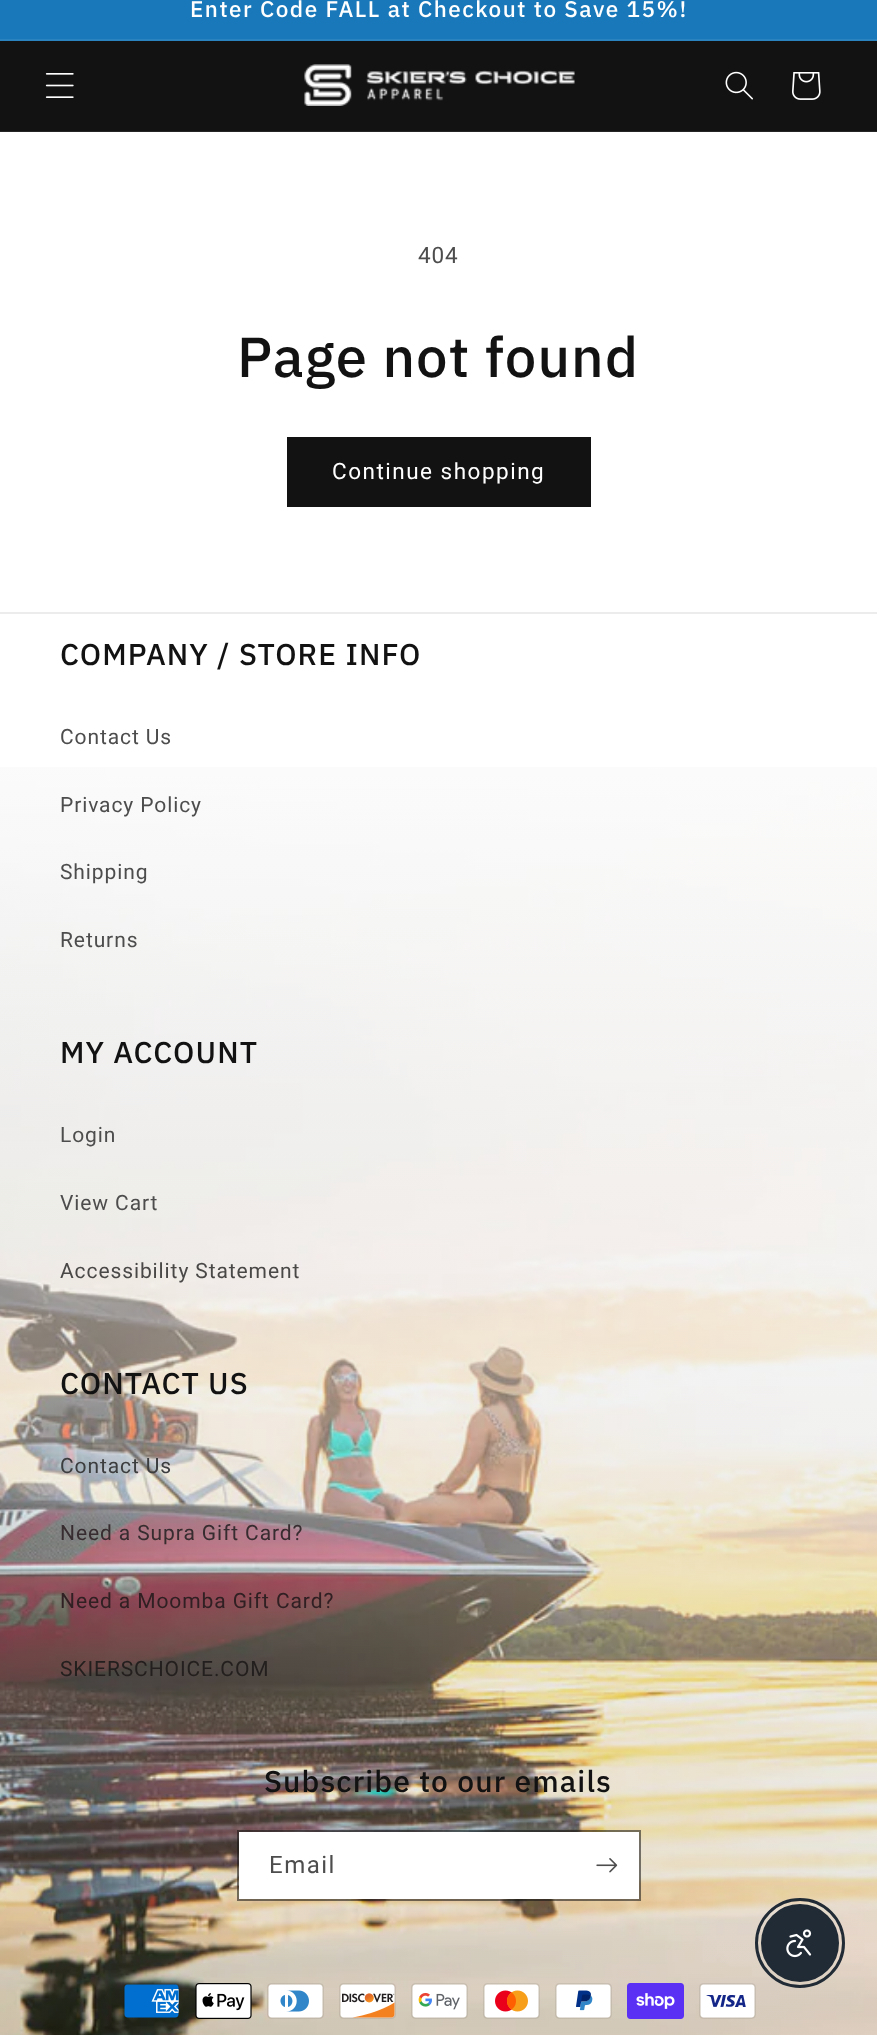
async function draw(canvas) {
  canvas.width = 877;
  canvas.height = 2035;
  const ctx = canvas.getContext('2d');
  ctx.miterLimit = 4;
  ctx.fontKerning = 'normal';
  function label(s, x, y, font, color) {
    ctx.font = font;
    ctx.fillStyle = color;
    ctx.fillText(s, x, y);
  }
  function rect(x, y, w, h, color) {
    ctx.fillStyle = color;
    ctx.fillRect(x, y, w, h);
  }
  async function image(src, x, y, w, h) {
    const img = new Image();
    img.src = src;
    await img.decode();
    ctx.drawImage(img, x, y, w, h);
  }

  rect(0, 0, 877, 2035, '#fff');
  rect(0, 0, 877, 39, '#1878b9');
  rect(0, 39, 877, 2, '#2a83bf');
  ctx.letterSpacing = '1.5px';
  label('Enter Code FALL at Checkout to Save 15%!', 190, 17, '500 22.5px IBM Plex Sans', '#fff');
  rect(0, 41, 877, 90, '#121212');
  rect(0, 131, 877, 1, '#252525');
  await image('assets/img1.png', 45, 73, 29, 25);
  await image('assets/img2.png', 304, 64, 271, 42);
  await image('assets/img3.png', 725, 71, 28, 29);
  await image('assets/img4.png', 792, 72, 29, 28);
  ctx.letterSpacing = '0.9px';
  label('404', 418, 263, '22.5px Roboto', '#4d4d4d');
  ctx.letterSpacing = '1.1px';
  label('Page not found', 237, 377, '500 56.25px IBM Plex Sans', '#121212');
  rect(287, 437, 304, 70, '#121212');
  ctx.letterSpacing = '1.5px';
  label('Continue shopping', 332, 479, '22.5px Roboto', '#fff');
  await image('assets/img5.png', 0, 767, 877, 1268);
  rect(0, 612, 877, 2, '#ececec');
  ctx.letterSpacing = '1.1px';
  label('COMPANY / STORE INFO', 60, 665, '500 30px IBM Plex Sans', '#121212');
  ctx.letterSpacing = '0.9px';
  label('Contact Us', 60, 744, '21px Roboto', '#4d4d4d');
  label('Privacy Policy', 60, 812, '21px Roboto', '#4d4d4d');
  label('Shipping', 60, 879, '21px Roboto', '#4d4d4d');
  label('Returns', 60, 947, '21px Roboto', '#4d4d4d');
  ctx.letterSpacing = '1.1px';
  label('MY ACCOUNT', 60, 1063, '500 30px IBM Plex Sans', '#121212');
  ctx.letterSpacing = '0.9px';
  label('Login', 60, 1142, '21px Roboto', '#4d4d4d');
  label('View Cart', 60, 1210, '21px Roboto', '#4d4d4d');
  label('Accessibility Statement', 60, 1278, '21px Roboto', '#494847');
  ctx.letterSpacing = '1.1px';
  label('CONTACT US', 60, 1394, '500 30px IBM Plex Sans', '#121212');
  ctx.letterSpacing = '0.9px';
  label('Contact Us', 60, 1473, '21px Roboto', '#3c3d3e');
  label('Need a Supra Gift Card?', 60, 1540, '21px Roboto', '#372c2f');
  label('Need a Moomba Gift Card?', 60, 1608, '21px Roboto', '#302023');
  label('SKIERSCHOICE.COM', 60, 1676, '21px Roboto', '#231f1e');
  ctx.letterSpacing = '1.1px';
  label('Subscribe to our emails', 264, 1792, '500 30px IBM Plex Sans', '#121212');
  rect(239, 1832, 400, 67, '#fff');
  ctx.strokeStyle = '#1212128c';
  ctx.lineWidth = 2;
  ctx.strokeRect(238, 1831, 402, 69);
  ctx.letterSpacing = '1.5px';
  label('Email', 269, 1873, '24px Roboto', '#4d4d4d');
  await image('assets/img6.png', 596, 1858, 22, 15);
  await image('assets/img7.png', 123, 1983, 56, 35);
  await image('assets/img8.png', 195, 1983, 57, 36);
  await image('assets/img9.png', 267, 1983, 57, 36);
  await image('assets/img10.png', 339, 1983, 57, 36);
  await image('assets/img11.png', 411, 1983, 57, 36);
  await image('assets/img12.png', 483, 1983, 57, 36);
  await image('assets/img13.png', 555, 1983, 57, 36);
  await image('assets/img14.png', 627, 1983, 57, 36);
  await image('assets/img15.png', 699, 1983, 57, 36);
  ctx.beginPath();
  ctx.arc(800, 1943, 43.5, 0, 2 * Math.PI);
  ctx.strokeStyle = '#212b36';
  ctx.lineWidth = 3;
  ctx.stroke();
  ctx.fillStyle = '#212b36';
  ctx.beginPath();
  ctx.arc(800, 1943, 38, 0, 2 * Math.PI);
  ctx.fill();
  ctx.lineWidth = 2;
  ctx.stroke();
  await image('assets/img16.png', 786, 1929, 26, 29);
}

draw(document.querySelector('canvas'));
